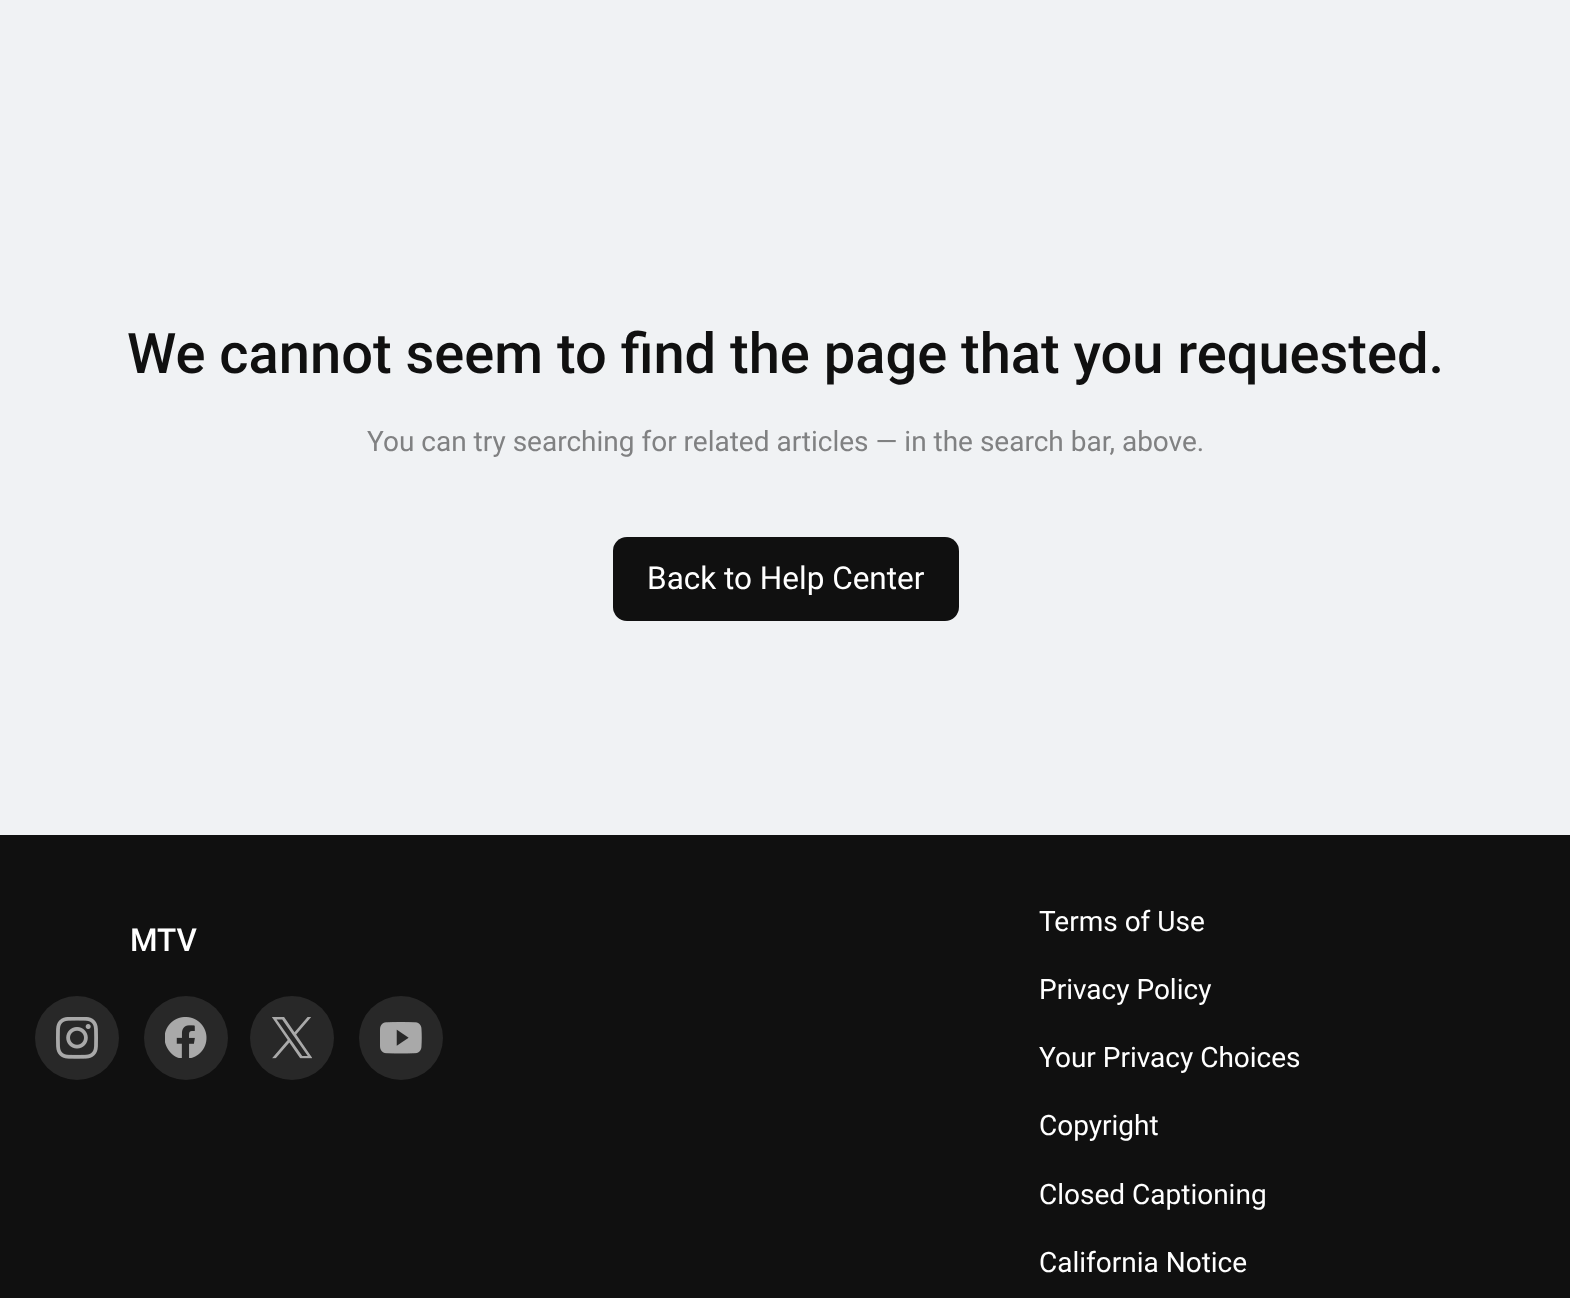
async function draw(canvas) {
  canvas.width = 1570;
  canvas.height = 1298;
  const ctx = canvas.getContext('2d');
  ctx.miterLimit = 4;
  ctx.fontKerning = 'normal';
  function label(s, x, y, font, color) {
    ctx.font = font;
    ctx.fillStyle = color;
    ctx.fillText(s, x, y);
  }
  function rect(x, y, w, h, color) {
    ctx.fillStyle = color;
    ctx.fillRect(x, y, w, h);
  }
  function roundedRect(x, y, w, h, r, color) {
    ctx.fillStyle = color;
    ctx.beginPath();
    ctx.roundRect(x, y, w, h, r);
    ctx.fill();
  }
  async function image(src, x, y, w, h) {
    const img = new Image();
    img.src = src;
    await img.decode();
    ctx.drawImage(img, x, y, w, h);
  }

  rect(0, 0, 1570, 1298, '#f0f2f4');
  label('We cannot seem to find the page that you requested.', 127, 373, '500 56px Roboto', '#101010');
  label('You can try searching for related articles — in the search bar, above.', 367, 451, '28px Roboto', '#808182');
  roundedRect(613, 537, 346, 84, 14, '#101010');
  ctx.save();
  ctx.beginPath();
  ctx.rect(648, 564, 276, 31);
  ctx.clip();
  label('Back to Help Center', 647, 589, '31.5px Roboto', '#fff');
  ctx.restore();
  rect(0, 835, 1570, 463, '#101010');
  label('MTV', 130, 951, '500 31.5px Roboto', '#fff');
  ctx.fillStyle = '#282828';
  ctx.beginPath();
  ctx.arc(77, 1038, 42, 0, 2 * Math.PI);
  ctx.fill();
  await image('assets/img1.png', 56, 1017, 42, 42);
  ctx.beginPath();
  ctx.arc(186, 1038, 42, 0, 2 * Math.PI);
  ctx.fill();
  await image('assets/img2.png', 165, 1017, 42, 41);
  ctx.beginPath();
  ctx.arc(292, 1038, 42, 0, 2 * Math.PI);
  ctx.fill();
  await image('assets/img3.png', 272, 1017, 40, 42);
  ctx.beginPath();
  ctx.arc(401, 1038, 42, 0, 2 * Math.PI);
  ctx.fill();
  await image('assets/img4.png', 380, 1022, 42, 32);
  label('Terms of Use', 1039, 931, '28px Roboto', '#fff');
  label('Privacy Policy', 1039, 999, '28px Roboto', '#fff');
  label('Your Privacy Choices', 1039, 1067, '28px Roboto', '#fff');
  label('Copyright', 1039, 1135, '28px Roboto', '#fff');
  label('Closed Captioning', 1039, 1204, '28px Roboto', '#fff');
  label('California Notice', 1039, 1272, '28px Roboto', '#fff');
}

draw(document.querySelector('canvas'));
